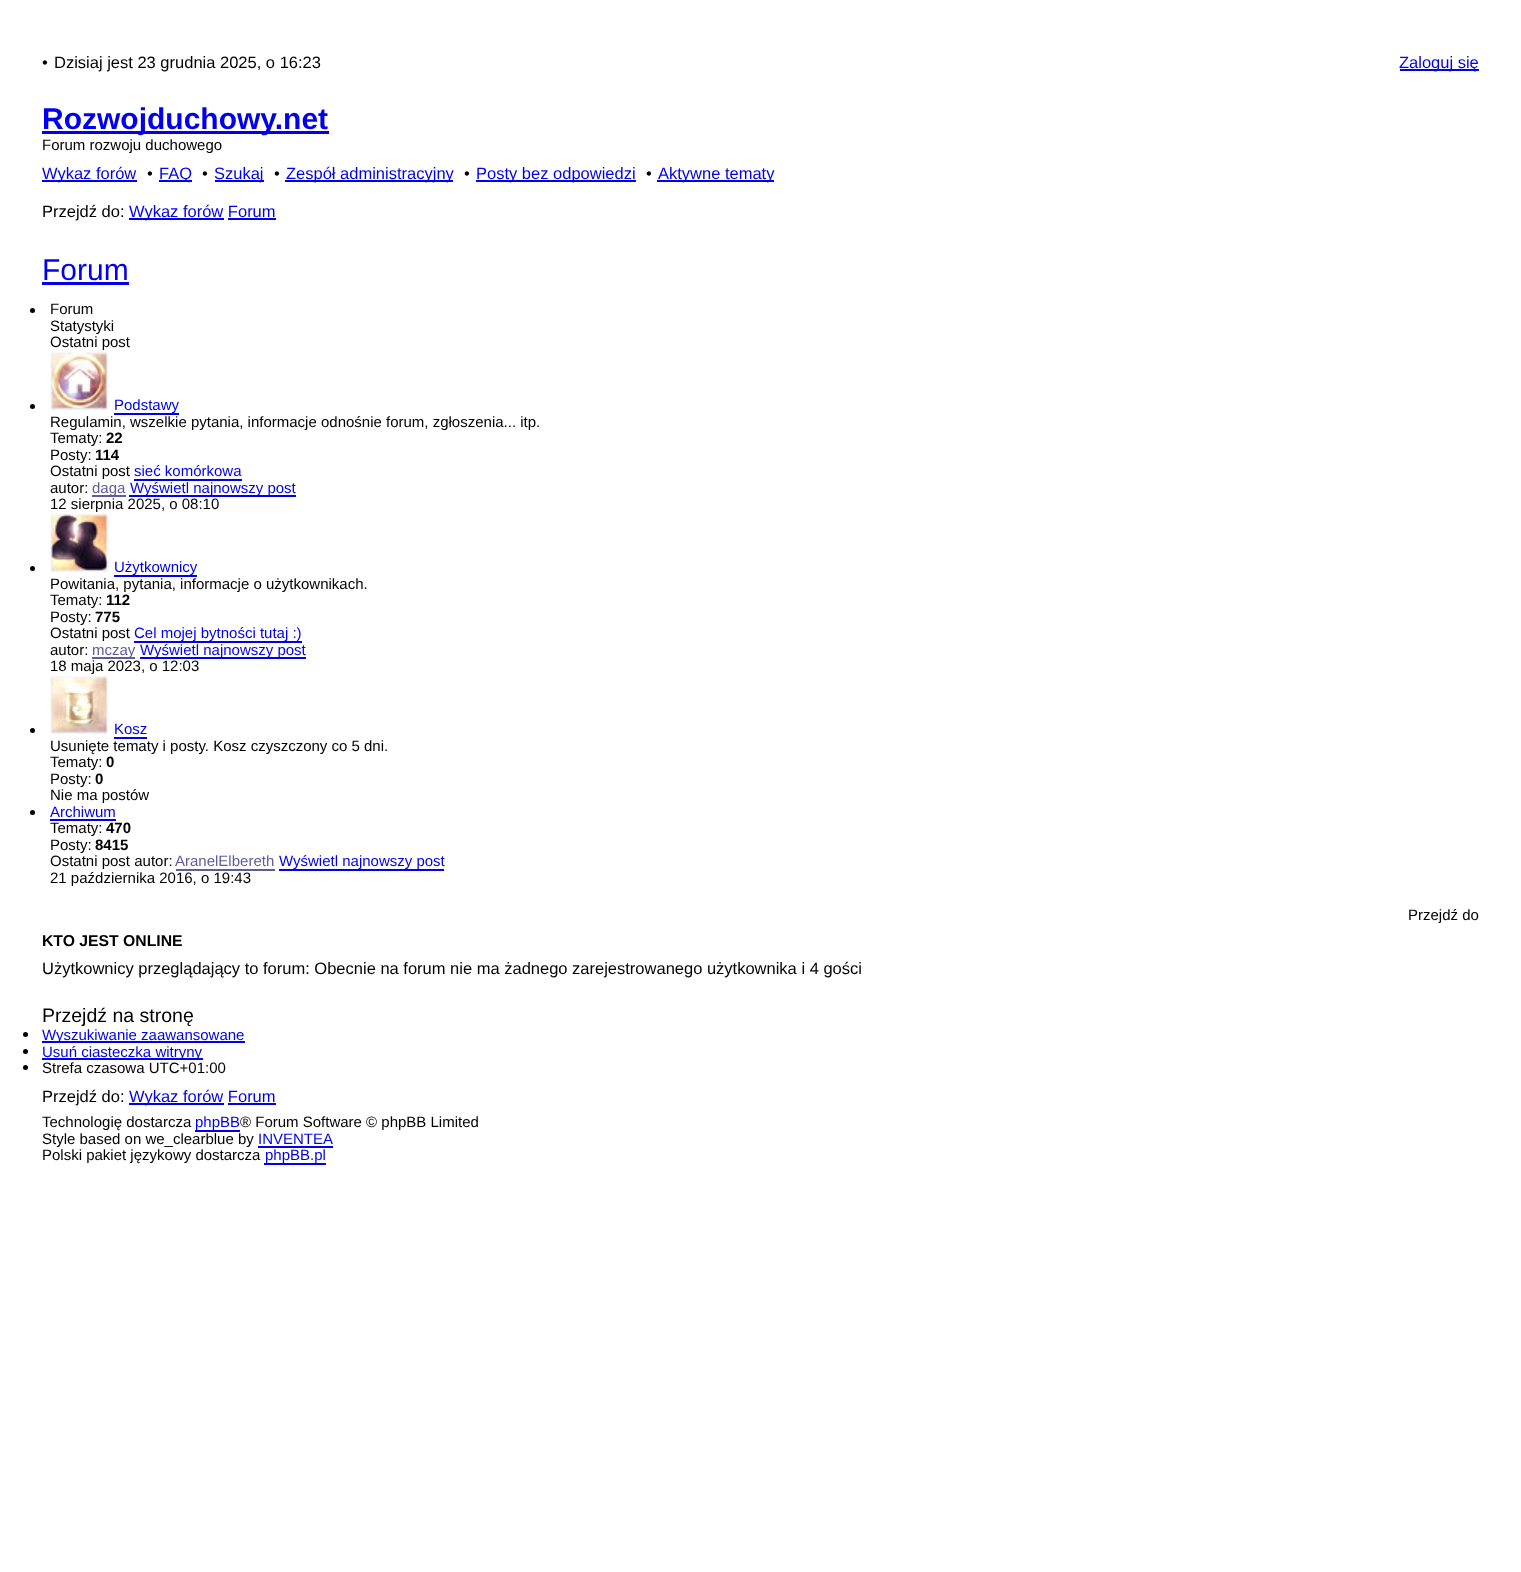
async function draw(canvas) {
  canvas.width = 1521;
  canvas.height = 1572;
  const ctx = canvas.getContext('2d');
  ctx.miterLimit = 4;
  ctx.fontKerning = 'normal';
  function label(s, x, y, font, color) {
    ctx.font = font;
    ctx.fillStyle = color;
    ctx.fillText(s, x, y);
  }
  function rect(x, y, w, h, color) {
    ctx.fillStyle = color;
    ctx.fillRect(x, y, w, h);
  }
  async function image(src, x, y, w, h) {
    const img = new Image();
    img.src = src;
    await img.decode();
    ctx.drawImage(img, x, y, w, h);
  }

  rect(0, 0, 1521, 1572, '#fff');
  label('•', 42, 68, '16.5px Liberation Sans', '#000');
  label('Dzisiaj jest 23 grudnia 2025, o 16:23', 54, 68, '16.5px Liberation Sans', '#000');
  rect(1400, 69, 79, 2, '#00e');
  label('Zaloguj się', 1399, 68, '16.5px Liberation Sans', '#00e');
  rect(42, 131, 287, 3, '#00e');
  label('Rozwojduchowy.net', 42, 129, 'bold 30px Liberation Sans', '#00e');
  label('Forum rozwoju duchowego', 42, 150, '15px Liberation Sans', '#000');
  rect(42, 180, 95, 2, '#00e');
  label('Wykaz forów', 42, 179, '16.5px Liberation Sans', '#00e');
  label('•', 147, 179, '16.5px Liberation Sans', '#000');
  rect(159, 180, 33, 2, '#00e');
  label('FAQ', 159, 179, '16.5px Liberation Sans', '#00e');
  label('•', 202, 179, '16.5px Liberation Sans', '#000');
  rect(215, 180, 49, 2, '#00e');
  label('Szukaj', 214, 179, '16.5px Liberation Sans', '#00e');
  label('•', 274, 179, '16.5px Liberation Sans', '#000');
  rect(285, 180, 168, 2, '#00e');
  label('Zespół administracyjny', 286, 179, '16.5px Liberation Sans', '#00e');
  label('•', 464, 179, '16.5px Liberation Sans', '#000');
  rect(476, 180, 160, 2, '#00e');
  label('Posty bez odpowiedzi', 476, 179, '16.5px Liberation Sans', '#00e');
  label('•', 646, 179, '16.5px Liberation Sans', '#000');
  rect(657, 180, 117, 2, '#00e');
  label('Aktywne tematy', 658, 179, '16.5px Liberation Sans', '#00e');
  label('Przejdź do:', 42, 217, '16.5px Liberation Sans', '#000');
  rect(129, 218, 95, 2, '#00e');
  label('Wykaz forów Forum', 129, 217, '16.5px Liberation Sans', '#00e');
  rect(228, 218, 48, 2, '#00e');
  label('Forum', 42, 280, '30px Liberation Sans', '#00e');
  rect(42, 282, 87, 3, '#00e');
  ctx.fillStyle = '#000';
  ctx.beginPath();
  ctx.arc(32.5, 310.5, 2.5, 0, 2 * Math.PI);
  ctx.fill();
  label('Forum', 50, 314, '15px Liberation Sans', '#000');
  label('Statystyki', 50, 331, '15px Liberation Sans', '#000');
  label('Ostatni post', 50, 347, '15px Liberation Sans', '#000');
  ctx.beginPath();
  ctx.arc(32.5, 406.5, 2.5, 0, 2 * Math.PI);
  ctx.fill();
  await image('assets/img1.png', 50, 351, 60, 60);
  rect(114, 413, 65, 2, '#00e');
  label('Podstawy', 114, 410, '15px Liberation Sans', '#00e');
  label('Regulamin, wszelkie pytania, informacje odnośnie forum, zgłoszenia... itp.', 50, 427, '15px Liberation Sans', '#000');
  label('Tematy:', 50, 443, '15px Liberation Sans', '#000');
  label('22', 106, 443, 'bold 15px Liberation Sans', '#000');
  label('Posty:', 50, 460, '15px Liberation Sans', '#000');
  label('114', 95, 460, 'bold 15px Liberation Sans', '#000');
  label('Ostatni post', 50, 476, '15px Liberation Sans', '#000');
  label('sieć komórkowa', 134, 476, '15px Liberation Sans', '#00e');
  label('autor:', 50, 493, '15px Liberation Sans', '#000');
  rect(92, 495, 34, 2, '#5d5d9c');
  label('daga', 92, 493, '15px Liberation Sans', '#5d5d9c');
  rect(129, 495, 167, 2, '#00e');
  label('Wyświetl najnowszy post', 130, 493, '15px Liberation Sans', '#00e');
  rect(134, 479, 108, 2, '#00e');
  label('12 sierpnia 2025, o 08:10', 50, 509, '15px Liberation Sans', '#000');
  ctx.beginPath();
  ctx.arc(32.5, 568.5, 2.5, 0, 2 * Math.PI);
  ctx.fill();
  await image('assets/img2.png', 50, 513, 60, 60);
  rect(114, 575, 83, 2, '#00e');
  label('Użytkownicy', 114, 572, '15px Liberation Sans', '#00e');
  label('Powitania, pytania, informacje o użytkownikach.', 50, 589, '15px Liberation Sans', '#000');
  label('Tematy:', 50, 605, '15px Liberation Sans', '#000');
  label('112', 106, 605, 'bold 15px Liberation Sans', '#000');
  label('Posty:', 50, 622, '15px Liberation Sans', '#000');
  label('775', 95, 622, 'bold 15px Liberation Sans', '#000');
  label('Ostatni post', 50, 638, '15px Liberation Sans', '#000');
  rect(134, 641, 168, 2, '#00e');
  label('Cel mojej bytności tutaj :)', 134, 638, '15px Liberation Sans', '#00e');
  label('autor:', 50, 655, '15px Liberation Sans', '#000');
  rect(92, 657, 43, 2, '#5d5d9c');
  label('mczay', 92, 655, '15px Liberation Sans', '#5d5d9c');
  rect(140, 657, 166, 2, '#00e');
  label('Wyświetl najnowszy post', 140, 655, '15px Liberation Sans', '#00e');
  label('18 maja 2023, o 12:03', 50, 671, '15px Liberation Sans', '#000');
  ctx.beginPath();
  ctx.arc(32.5, 730.5, 2.5, 0, 2 * Math.PI);
  ctx.fill();
  await image('assets/img3.png', 50, 675, 60, 60);
  label('Kosz', 114, 734, '15px Liberation Sans', '#00e');
  rect(114, 737, 33, 2, '#00e');
  label('Usunięte tematy i posty. Kosz czyszczony co 5 dni.', 50, 751, '15px Liberation Sans', '#000');
  label('Tematy:', 50, 767, '15px Liberation Sans', '#000');
  label('0', 106, 767, 'bold 15px Liberation Sans', '#000');
  label('Posty:', 50, 784, '15px Liberation Sans', '#000');
  label('0', 95, 784, 'bold 15px Liberation Sans', '#000');
  label('Nie ma postów', 50, 800, '15px Liberation Sans', '#000');
  ctx.beginPath();
  ctx.arc(32.5, 812.5, 2.5, 0, 2 * Math.PI);
  ctx.fill();
  label('Archiwum', 50, 817, '15px Liberation Sans', '#00e');
  rect(50, 819, 66, 2, '#00e');
  label('Tematy:', 50, 833, '15px Liberation Sans', '#000');
  label('470', 106, 833, 'bold 15px Liberation Sans', '#000');
  label('Posty:', 50, 850, '15px Liberation Sans', '#000');
  label('8415', 95, 850, 'bold 15px Liberation Sans', '#000');
  label('Ostatni post autor:', 50, 866, '15px Liberation Sans', '#000');
  label('AranelElbereth', 175, 866, '15px Liberation Sans', '#5d5d9c');
  rect(176, 869, 99, 2, '#5d5d9c');
  rect(279, 869, 165, 2, '#00e');
  label('Wyświetl najnowszy post', 279, 866, '15px Liberation Sans', '#00e');
  label('21 października 2016, o 19:43', 50, 883, '15px Liberation Sans', '#000');
  label('Przejdź do', 1408, 920, '15px Liberation Sans', '#000');
  label('KTO JEST ONLINE', 42, 946, 'bold 15.75px Liberation Sans', '#000');
  label('Użytkownicy przeglądający to forum: Obecnie na forum nie ma żadnego zarejestrowanego użytkownika i 4 gości', 42, 974, '16.5px Liberation Sans', '#000');
  label('Przejdź na stronę', 42, 1022, '19.5px Liberation Sans', '#000');
  ctx.beginPath();
  ctx.arc(25.5, 1034.5, 2.5, 0, 2 * Math.PI);
  ctx.fill();
  rect(42, 1041, 203, 2, '#00e');
  label('Wyszukiwanie zaawansowane', 42, 1040, '15px Liberation Sans', '#00e');
  ctx.fillStyle = '#000';
  ctx.beginPath();
  ctx.arc(25.5, 1051.5, 2.5, 0, 2 * Math.PI);
  ctx.fill();
  rect(42, 1058, 161, 2, '#00e');
  label('Usuń ciasteczka witryny', 42, 1057, '15px Liberation Sans', '#00e');
  ctx.fillStyle = '#000';
  ctx.beginPath();
  ctx.arc(25.5, 1067.5, 2.5, 0, 2 * Math.PI);
  ctx.fill();
  label('Strefa czasowa UTC+01:00', 42, 1073, '15px Liberation Sans', '#000');
  label('Przejdź do:', 42, 1102, '16.5px Liberation Sans', '#000');
  rect(129, 1103, 95, 2, '#00e');
  label('Wykaz forów Forum', 129, 1102, '16.5px Liberation Sans', '#00e');
  rect(228, 1103, 48, 2, '#00e');
  label('Technologię dostarcza', 42, 1127, '15px Liberation Sans', '#000');
  rect(195, 1130, 45, 2, '#00e');
  label('phpBB', 195, 1127, '15px Liberation Sans', '#00e');
  label('® Forum Software © phpBB Limited', 240, 1127, '15px Liberation Sans', '#000');
  label('Style based on we_clearblue by', 42, 1144, '15px Liberation Sans', '#000');
  label('INVENTEA', 258, 1144, '15px Liberation Sans', '#00e');
  rect(258, 1146, 75, 2, '#00e');
  label('Polski pakiet językowy dostarcza', 42, 1160, '15px Liberation Sans', '#000');
  rect(264, 1163, 62, 2, '#00e');
  label('phpBB.pl', 265, 1160, '15px Liberation Sans', '#00e');
}

draw(document.querySelector('canvas'));
